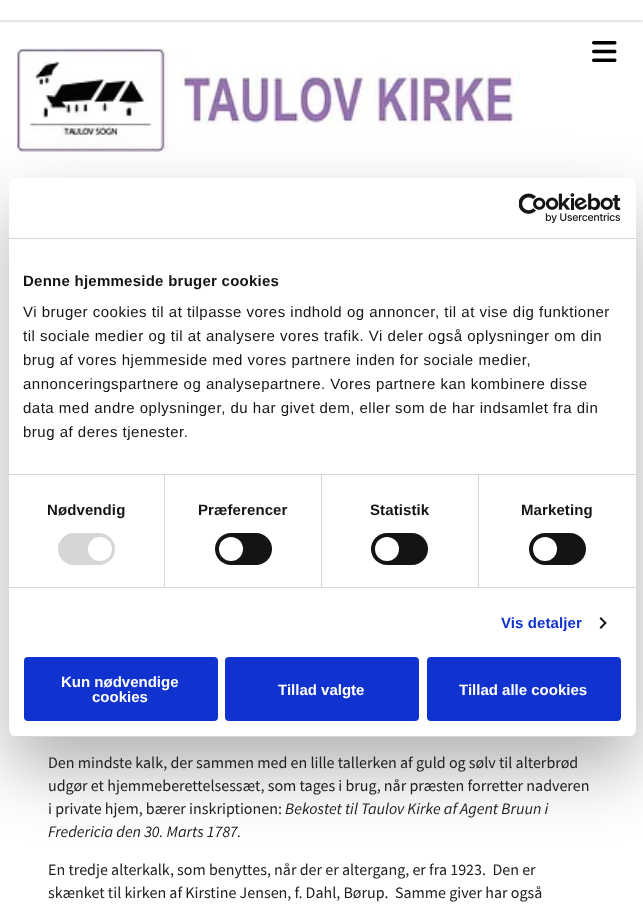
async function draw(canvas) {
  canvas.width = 643;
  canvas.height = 915;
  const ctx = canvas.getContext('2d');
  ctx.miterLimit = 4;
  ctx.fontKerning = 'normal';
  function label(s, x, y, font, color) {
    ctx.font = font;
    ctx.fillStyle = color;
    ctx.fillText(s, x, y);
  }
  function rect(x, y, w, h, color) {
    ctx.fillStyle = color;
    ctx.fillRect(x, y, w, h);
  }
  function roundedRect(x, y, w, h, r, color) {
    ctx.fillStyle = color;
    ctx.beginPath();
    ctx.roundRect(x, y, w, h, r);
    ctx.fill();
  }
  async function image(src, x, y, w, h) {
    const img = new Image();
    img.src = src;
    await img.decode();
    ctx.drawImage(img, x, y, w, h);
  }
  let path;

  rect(0, 0, 643, 915, '#fff');
  await image('assets/img2.png', 16, 48, 504, 104);
  ctx.fillStyle = '#0000004d';
  ctx.filter = 'blur(34px)';
  ctx.beginPath();
  ctx.roundRect(9, 210, 627, 559, 8);
  ctx.fill();
  ctx.filter = 'none';
  roundedRect(9, 178, 627, 559, 8, '#fff');
  rect(9, 238, 627, 1, '#d6d6d6');
  await image('assets/img1.png', 519, 193, 102, 30);
  rect(9, 474, 627, 1, '#d6d6d6');
  ctx.letterSpacing = '0.25px';
  label('Denne hjemmeside bruger cookies', 23, 286, 'bold 15px Liberation Sans', '#141414');
  ctx.letterSpacing = '0.5px';
  label('Vi bruger cookies til at tilpasse vores indhold og annoncer, til at vise dig funktioner', 23, 317, '15px Liberation Sans', '#141414');
  label('til sociale medier og til at analysere vores trafik. Vi deler også oplysninger om din', 23, 341, '15px Liberation Sans', '#141414');
  label('brug af vores hjemmeside med vores partnere inden for sociale medier,', 23, 365, '15px Liberation Sans', '#141414');
  label('annonceringspartnere og analysepartnere. Vores partnere kan kombinere disse', 23, 389, '15px Liberation Sans', '#141414');
  label('data med andre oplysninger, du har givet dem, eller som de har indsamlet fra din', 23, 413, '15px Liberation Sans', '#141414');
  label('brug af deres tjenester.', 23, 437, '15px Liberation Sans', '#141414');
  rect(9, 587, 627, 1, '#d6d6d6');
  rect(164, 475, 1, 112, '#d6d6d6');
  ctx.letterSpacing = '0.1px';
  label('Nødvendig', 47, 515, 'bold 15px Liberation Sans', '#141414');
  roundedRect(58, 533, 57, 32, 16, '#d6d6d6');
  ctx.fillStyle = '#fff';
  ctx.beginPath();
  ctx.arc(100, 549, 12, 0, 2 * Math.PI);
  ctx.fill();
  rect(321, 475, 1, 112, '#d6d6d6');
  label('Præferencer', 198, 515, 'bold 15px Liberation Sans', '#141414');
  roundedRect(215, 533, 57, 32, 16, '#141414');
  ctx.fillStyle = '#fff';
  ctx.beginPath();
  ctx.arc(231, 549, 12, 0, 2 * Math.PI);
  ctx.fill();
  rect(478, 475, 1, 112, '#d6d6d6');
  label('Statistik', 370, 515, 'bold 15px Liberation Sans', '#141414');
  roundedRect(371, 533, 57, 32, 16, '#141414');
  ctx.fillStyle = '#fff';
  ctx.beginPath();
  ctx.arc(387, 549, 12, 0, 2 * Math.PI);
  ctx.fill();
  label('Marketing', 521, 515, 'bold 15px Liberation Sans', '#141414');
  roundedRect(529, 533, 57, 32, 16, '#141414');
  ctx.fillStyle = '#fff';
  ctx.beginPath();
  ctx.arc(545, 549, 12, 0, 2 * Math.PI);
  ctx.fill();
  label('Vis detaljer', 501, 628, 'bold 15px Liberation Sans', '#1032cf');
  ctx.fillStyle = '#141414';
  path = new Path2D('M601 617L606.5 623L605.5 624.5L599.5 618.5Z');
  ctx.fill(path);
  path = new Path2D('M605.5 621.5L606.5 623L601 629L599.5 627.5Z');
  ctx.fill(path);
  ctx.save();
  ctx.beginPath();
  ctx.roundRect(9, 178, 627, 559, 8);
  ctx.clip();
  rect(9, 736, 627, 1, '#d6d6d6');
  ctx.restore();
  ctx.fillStyle = '#1032cf';
  ctx.beginPath();
  ctx.roundRect(25, 658, 192, 62, 3);
  ctx.fill();
  ctx.strokeStyle = '#1032cf';
  ctx.lineWidth = 2;
  ctx.stroke();
  ctx.letterSpacing = '0px';
  label('Kun nødvendige', 61, 687, 'bold 15px Liberation Sans', '#fff');
  label('cookies', 92, 702, 'bold 15px Liberation Sans', '#fff');
  ctx.fillStyle = '#1032cf';
  ctx.beginPath();
  ctx.roundRect(226, 658, 192, 62, 3);
  ctx.fill();
  ctx.stroke();
  label('Tillad valgte', 278, 695, 'bold 15px Liberation Sans', '#fff');
  ctx.fillStyle = '#1032cf';
  ctx.beginPath();
  ctx.roundRect(428, 658, 192, 62, 3);
  ctx.fill();
  ctx.stroke();
  label('Tillad alle cookies', 459, 695, 'bold 15px Liberation Sans', '#fff');
  ctx.save();
  ctx.beginPath();
  ctx.rect(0, 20, 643, 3);
  ctx.clip();
  ctx.fillStyle = '#22242626';
  ctx.filter = 'blur(1px)';
  ctx.beginPath();
  ctx.rect(0, 2, 643, 20);
  ctx.fill();
  ctx.filter = 'none';
  ctx.restore();
  await image('assets/img3.png', 592, 41, 25, 21);
  label('Den mindste kalk, der sammen med en lille tallerken af guld og sølv til alterbrød', 48, 768, '16px Source Sans Pro', '#212121');
  label('udgør et hjemmeberettelsessæt, som tages i brug, når præsten forretter nadveren', 48, 791, '16px Source Sans Pro', '#212121');
  label('i private hjem, bærer inskriptionen:', 48, 814, '16px Source Sans Pro', '#212121');
  label('Bekostet til Taulov Kirke af Agent Bruun i', 285, 814, 'italic 16px Source Sans Pro', '#212121');
  label('Fredericia den 30. Marts 1787.', 48, 837, 'italic 16px Source Sans Pro', '#212121');
  label('En tredje alterkalk, som benyttes, når der er altergang, er fra 1923.  Den er', 48, 875, '16px Source Sans Pro', '#212121');
  label('skænket til kirken af Kirstine Jensen, f. Dahl, Børup.  Samme giver har også', 48, 898, '16px Source Sans Pro', '#212121');
}

draw(document.querySelector('canvas'));
